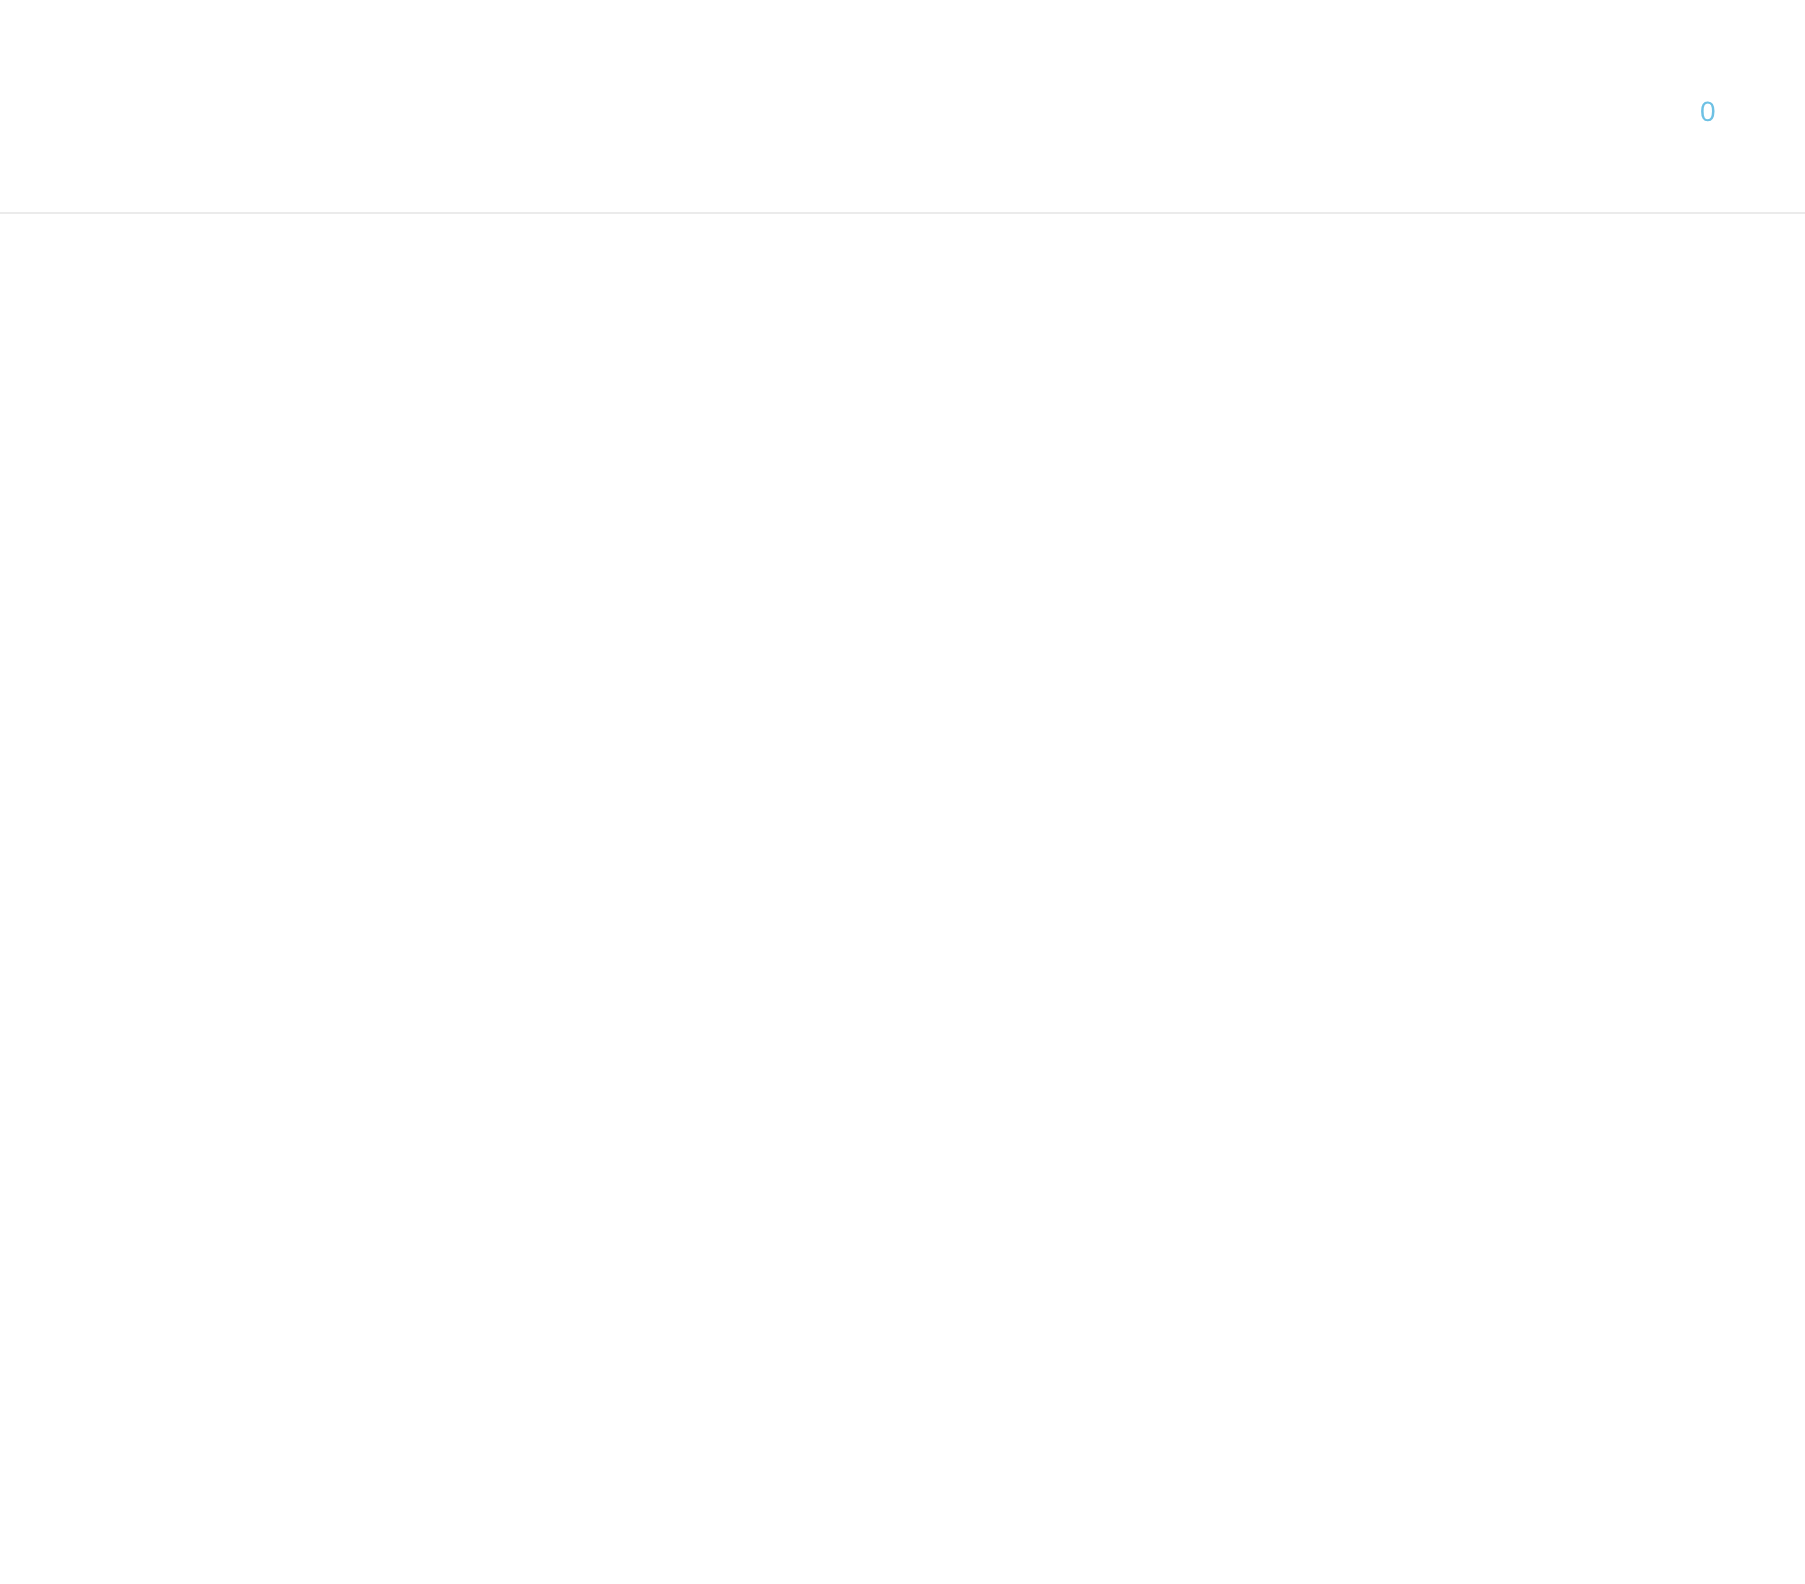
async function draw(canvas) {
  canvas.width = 1805;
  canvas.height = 1584;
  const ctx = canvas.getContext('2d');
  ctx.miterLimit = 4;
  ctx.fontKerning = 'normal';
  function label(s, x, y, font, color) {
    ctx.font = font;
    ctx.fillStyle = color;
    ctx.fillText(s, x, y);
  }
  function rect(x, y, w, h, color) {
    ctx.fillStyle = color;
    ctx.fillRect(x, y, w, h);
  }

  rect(0, 0, 1805, 1584, '#fff');
  rect(0, 212, 1805, 2, '#ebebeb');
  label('0', 1700, 121, '28px Liberation Sans', '#6ec1e4');
}

draw(document.querySelector('canvas'));
